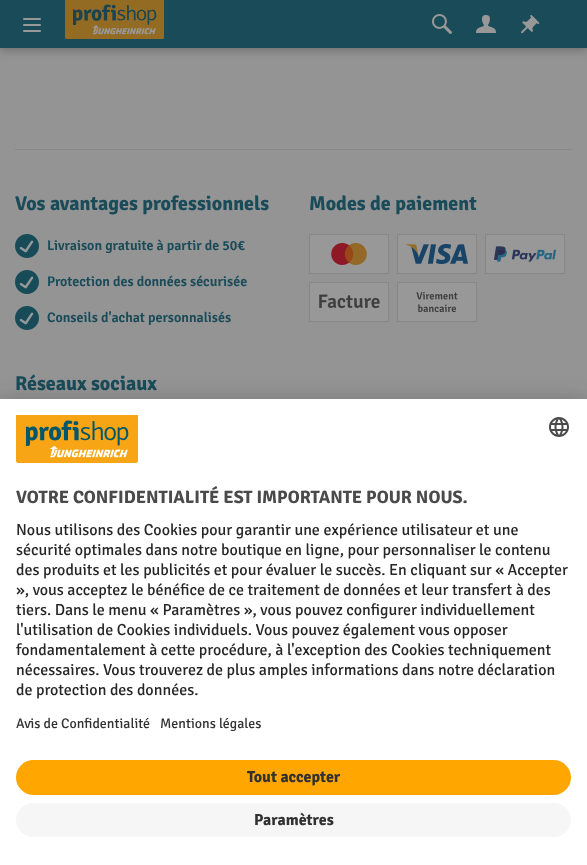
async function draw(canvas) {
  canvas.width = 587;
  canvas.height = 865;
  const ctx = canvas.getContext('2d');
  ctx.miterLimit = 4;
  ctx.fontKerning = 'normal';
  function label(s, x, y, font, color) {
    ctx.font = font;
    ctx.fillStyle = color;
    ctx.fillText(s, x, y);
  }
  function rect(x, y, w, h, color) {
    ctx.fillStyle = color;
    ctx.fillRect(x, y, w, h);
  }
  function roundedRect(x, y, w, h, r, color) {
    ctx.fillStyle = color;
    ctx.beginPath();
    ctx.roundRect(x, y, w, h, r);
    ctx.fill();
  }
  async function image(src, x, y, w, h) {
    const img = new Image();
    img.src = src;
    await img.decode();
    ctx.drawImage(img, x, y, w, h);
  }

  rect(0, 0, 587, 865, '#949494');
  ctx.fillStyle = '#1919191a';
  ctx.filter = 'blur(2px)';
  ctx.beginPath();
  ctx.rect(0, 1, 587, 48);
  ctx.fill();
  ctx.filter = 'none';
  ctx.fillStyle = '#19191933';
  ctx.filter = 'blur(4px)';
  ctx.beginPath();
  ctx.rect(0, 4, 587, 48);
  ctx.fill();
  ctx.filter = 'none';
  rect(0, 0, 587, 48, '#194b59');
  await image('assets/img1.png', 23, 18, 18, 14);
  await image('assets/img2.png', 64, 0, 101, 39);
  await image('assets/img3.png', 432, 14, 20, 20);
  await image('assets/img4.png', 476, 15, 20, 18);
  await image('assets/img5.png', 521, 15, 19, 19);
  rect(15, 149, 557, 1, '#878787');
  label('Vos avantages professionnels', 15, 210, 'bold 20px Signika', '#194b59');
  await image('assets/img6.png', 15, 234, 24, 24);
  label('Livraison gratuite à partir de 50€', 47, 250, '600 14px Signika', '#194b59');
  await image('assets/img6.png', 15, 270, 24, 24);
  label('Protection des données sécurisée', 47, 286, '600 14px Signika', '#194b59');
  await image('assets/img6.png', 15, 306, 24, 24);
  label('Conseils d\'achat personnalisés', 47, 322, '600 14px Signika', '#194b59');
  label('Modes de paiement', 309, 210, 'bold 20px Signika', '#194b59');
  ctx.fillStyle = '#989898';
  ctx.beginPath();
  ctx.rect(309.5, 234.5, 79, 39);
  ctx.fill();
  ctx.strokeStyle = '#878787';
  ctx.stroke();
  await image('assets/img7.png', 331, 243, 36, 22);
  ctx.beginPath();
  ctx.rect(397.5, 234.5, 79, 39);
  ctx.fill();
  ctx.stroke();
  await image('assets/img8.png', 406, 244, 62, 20);
  ctx.beginPath();
  ctx.rect(485.5, 234.5, 79, 39);
  ctx.fill();
  ctx.stroke();
  await image('assets/img9.png', 494, 246, 62, 16);
  ctx.beginPath();
  ctx.rect(309.5, 282.5, 79, 39);
  ctx.fill();
  ctx.stroke();
  await image('assets/img10.png', 319, 294, 61, 15);
  ctx.beginPath();
  ctx.rect(397.5, 282.5, 79, 39);
  ctx.fill();
  ctx.stroke();
  await image('assets/img11.png', 416, 292, 42, 21);
  label('Réseaux sociaux', 15, 390, 'bold 20px Signika', '#194b59');
  ctx.fillStyle = '#0000004d';
  ctx.filter = 'blur(14px)';
  ctx.beginPath();
  ctx.rect(0, 419, 587, 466);
  ctx.fill();
  ctx.filter = 'none';
  ctx.fillStyle = '#00000038';
  ctx.filter = 'blur(13px)';
  ctx.beginPath();
  ctx.rect(0, 404, 587, 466);
  ctx.fill();
  ctx.filter = 'none';
  rect(0, 399, 587, 466, '#fff');
  await image('assets/img12.png', 16, 415, 122, 48);
  await image('assets/img13.png', 549, 417, 20, 20);
  label('VOTRE CONFIDENTIALITÉ EST IMPORTANTE POUR NOUS.', 16, 503, 'bold 18px Signika', '#4a4a4a');
  label('Nous utilisons des Cookies pour garantir une expérience utilisateur et une', 16, 535, '300 16px Signika', '#262626');
  label('sécurité optimales dans notre boutique en ligne, pour personnaliser le contenu', 16, 555, '300 16px Signika', '#262626');
  label('des produits et les publicités et pour évaluer le succès. En cliquant sur « Accepter', 16, 575, '300 16px Signika', '#262626');
  label('», vous acceptez le bénéfice de ce traitement de données et leur transfert à des', 16, 595, '300 16px Signika', '#262626');
  label('tiers. Dans le menu « Paramètres », vous pouvez configurer individuellement', 16, 615, '300 16px Signika', '#262626');
  label('l\'utilisation de Cookies individuels. Vous pouvez également vous opposer', 16, 635, '300 16px Signika', '#262626');
  label('fondamentalement à cette procédure, à l\'exception des Cookies techniquement', 16, 655, '300 16px Signika', '#262626');
  label('nécessaires. Vous trouverez de plus amples informations dans notre déclaration', 16, 675, '300 16px Signika', '#262626');
  label('de protection des données.', 16, 695, '300 16px Signika', '#262626');
  label('Avis de Confidentialité', 16, 728, '300 14px Signika', '#313131');
  label('Mentions légales', 160, 728, '300 14px Signika', '#313131');
  roundedRect(16, 760, 555, 35, 17.5, '#ffa700');
  label('Tout accepter', 247, 782, 'bold 16px Signika', '#313131');
  roundedRect(16, 803, 555, 34, 17, '#f6f6f6');
  label('Paramètres', 254, 825, 'bold 16px Signika', '#313131');
}

draw(document.querySelector('canvas'));
